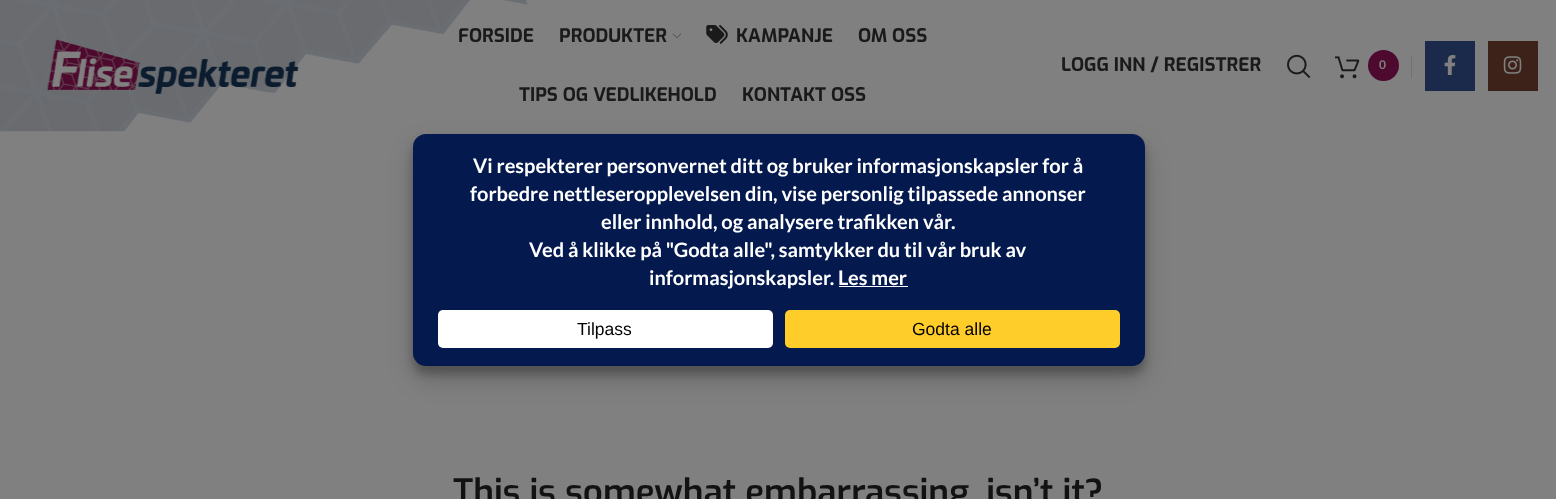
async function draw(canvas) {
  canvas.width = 1556;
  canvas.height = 499;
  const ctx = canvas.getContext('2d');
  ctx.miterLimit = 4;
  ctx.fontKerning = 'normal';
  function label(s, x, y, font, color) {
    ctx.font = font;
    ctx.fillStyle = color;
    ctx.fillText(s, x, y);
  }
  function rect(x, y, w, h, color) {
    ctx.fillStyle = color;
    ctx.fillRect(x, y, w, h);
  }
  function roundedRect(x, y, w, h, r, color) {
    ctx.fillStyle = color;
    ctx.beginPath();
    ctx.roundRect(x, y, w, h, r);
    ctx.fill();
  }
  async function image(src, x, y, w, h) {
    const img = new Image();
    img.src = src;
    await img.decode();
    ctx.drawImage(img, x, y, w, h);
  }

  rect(0, 0, 1556, 499, '#808080');
  await image('assets/img1.png', 0, 0, 528, 132);
  await image('assets/img2.png', 47, 39, 252, 55);
  label('FORSIDE', 458, 42, 'bold 18.75px Exo', '#1a1a1a');
  label('PRODUKTER', 559, 42, 'bold 18.75px Exo', '#1a1a1a');
  await image('assets/img3.png', 672, 33, 9, 6);
  await image('assets/img4.png', 706, 25, 22, 19);
  label('KAMPANJE', 736, 42, 'bold 18.75px Exo', '#1a1a1a');
  label('OM OSS', 858, 42, 'bold 18.75px Exo', '#1a1a1a');
  label('TIPS OG VEDLIKEHOLD', 519, 101, 'bold 18.75px Exo', '#1a1a1a');
  label('KONTAKT OSS', 742, 101, 'bold 18.75px Exo', '#1a1a1a');
  label('LOGG INN / REGISTRER', 1061, 71, 'bold 18.75px Exo', '#1a1a1a');
  await image('assets/img5.png', 1287, 54, 24, 24);
  await image('assets/img6.png', 1335, 56, 25, 23);
  ctx.fillStyle = '#4d092e';
  ctx.beginPath();
  ctx.arc(1383.5, 65.5, 15.5, 0, 2 * Math.PI);
  ctx.fill();
  label('0', 1379, 69, 'bold 12px Lato', '#808080');
  rect(1411, 55, 1, 23, '#727272');
  rect(1425, 41, 50, 50, '#1b2a4a');
  await image('assets/img7.png', 1444, 55, 12, 20);
  rect(1488, 41, 50, 50, '#3c2218');
  await image('assets/img8.png', 1503, 56, 19, 18);
  label('This is somewhat embarrassing, isn’t it?', 453, 504, '600 35px Exo', '#121212');
  ctx.fillStyle = '#0000003b';
  ctx.filter = 'blur(4px)';
  ctx.beginPath();
  ctx.roundRect(413, 141, 732, 233, 13);
  ctx.fill();
  ctx.filter = 'none';
  ctx.fillStyle = '#00000030';
  ctx.filter = 'blur(12.5px)';
  ctx.beginPath();
  ctx.roundRect(413, 146, 732, 233, 13);
  ctx.fill();
  ctx.filter = 'none';
  roundedRect(413, 134, 732, 232, 13, '#04194e');
  label('Vi respekterer personvernet ditt og bruker informasjonskapsler for å', 473, 173, 'bold 20px Lato', '#fff');
  label('forbedre nettleseropplevelsen din, vise personlig tilpassede annonser', 470, 201, 'bold 20px Lato', '#fff');
  label('eller innhold, og analysere trafikken vår.', 601, 229, 'bold 20px Lato', '#fff');
  label('Ved å klikke på "Godta alle", samtykker du til vår bruk av', 529, 257, 'bold 20px Lato', '#fff');
  label('informasjonskapsler. Les mer', 649, 285, 'bold 20px Lato', '#fff');
  rect(839, 286, 69, 1, '#fff');
  roundedRect(438, 310, 335, 38, 5, '#fff');
  label('Tilpass', 577, 335, '17.5px Liberation Sans', '#000');
  roundedRect(785, 310, 335, 38, 5, '#ffcd2a');
  label('Godta alle', 912, 335, '17.5px Liberation Sans', '#000');
}

draw(document.querySelector('canvas'));
